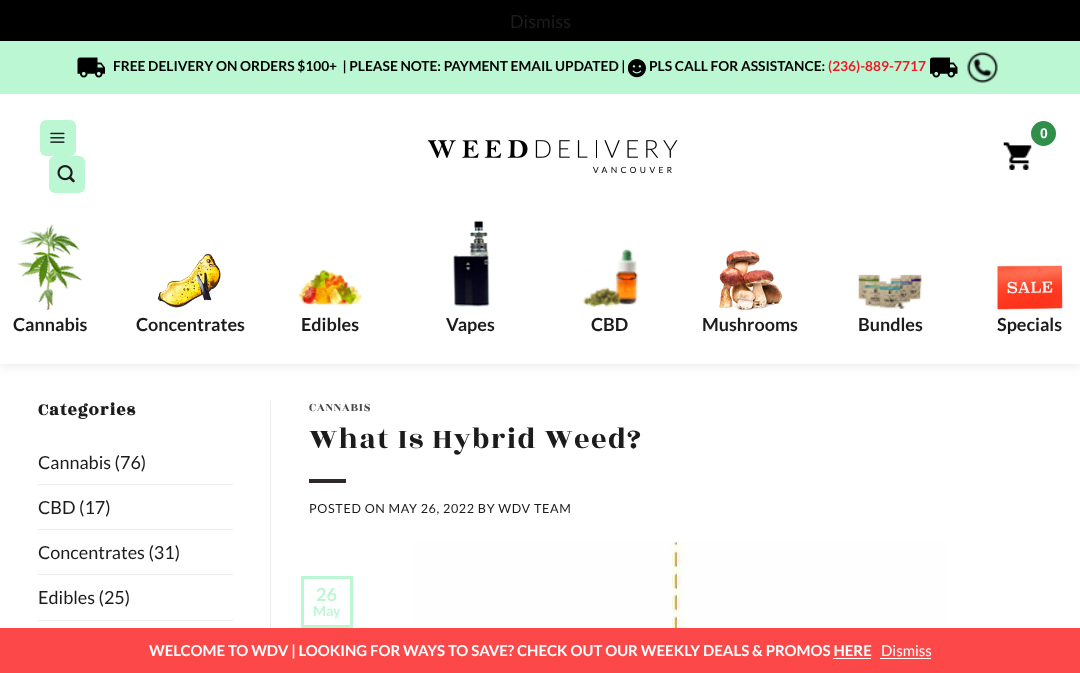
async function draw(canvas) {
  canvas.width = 1080;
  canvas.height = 673;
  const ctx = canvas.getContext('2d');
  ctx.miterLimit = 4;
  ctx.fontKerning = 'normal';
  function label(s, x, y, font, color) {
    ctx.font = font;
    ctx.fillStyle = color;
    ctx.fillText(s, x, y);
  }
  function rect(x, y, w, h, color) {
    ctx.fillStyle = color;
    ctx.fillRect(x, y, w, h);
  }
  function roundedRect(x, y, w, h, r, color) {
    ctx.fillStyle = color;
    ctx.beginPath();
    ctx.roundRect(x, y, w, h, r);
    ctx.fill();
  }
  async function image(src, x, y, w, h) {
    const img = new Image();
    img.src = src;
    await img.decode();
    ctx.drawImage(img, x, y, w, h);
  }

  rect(0, 0, 1080, 673, '#000');
  label('Dismiss', 510, 28, '18px Lato', '#1c1c1c');
  rect(0, 364, 1080, 264, '#fff');
  ctx.fillStyle = '#0000001a';
  ctx.filter = 'blur(6px)';
  ctx.beginPath();
  ctx.rect(1, 43, 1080, 322);
  ctx.fill();
  ctx.filter = 'none';
  rect(0, 94, 1080, 270, '#fff');
  rect(0, 41, 1080, 53, '#bcf7d4');
  await image('assets/img1.png', 77, 57, 28, 21);
  label('FREE DELIVERY ON ORDERS $100+  | PLEASE NOTE: PAYMENT EMAIL UPDATED |', 113, 71, 'bold 13.75px Lato', '#000');
  await image('assets/img2.png', 628, 59, 18, 19);
  label('PLS CALL FOR ASSISTANCE:', 649, 71, 'bold 13.75px Lato', '#000');
  label('(236)-889-7717', 828, 71, 'bold 13.75px Lato', '#ed1c24');
  await image('assets/img3.png', 930, 57, 28, 21);
  await image('assets/img4.png', 967, 52, 31, 31);
  roundedRect(40, 120, 36, 36, 6, '#bcf7d4');
  await image('assets/img5.png', 50, 132, 15, 11);
  roundedRect(49, 156, 36, 37, 6, '#bcf7d4');
  await image('assets/img6.png', 57, 165, 18, 18);
  await image('assets/img7.png', 1003, 142, 29, 28);
  ctx.fillStyle = '#30904a';
  ctx.beginPath();
  ctx.arc(1043.5, 133.5, 12.5, 0, 2 * Math.PI);
  ctx.fill();
  label('0', 1040, 138, 'bold 14px Liberation Sans', '#fff');
  await image('assets/img8.png', 428, 140, 250, 33);
  await image('assets/img9.png', 17, 224, 66, 86);
  label('Cannabis', 13, 331, 'bold 18px Lato', '#1c1c1c');
  await image('assets/img10.png', 157, 253, 64, 55);
  label('Concentrates', 136, 331, 'bold 18px Lato', '#1c1c1c');
  await image('assets/img11.png', 298, 269, 64, 37);
  label('Edibles', 301, 331, 'bold 18px Lato', '#1c1c1c');
  await image('assets/img12.png', 453, 220, 37, 87);
  label('Vapes', 446, 331, 'bold 18px Lato', '#1c1c1c');
  await image('assets/img13.png', 583, 249, 56, 59);
  label('CBD', 591, 331, 'bold 18px Lato', '#1c1c1c');
  await image('assets/img14.png', 719, 250, 64, 60);
  label('Mushrooms', 702, 331, 'bold 18px Lato', '#1c1c1c');
  await image('assets/img15.png', 857, 274, 65, 35);
  label('Bundles', 858, 331, 'bold 18px Lato', '#1c1c1c');
  await image('assets/img16.png', 997, 265, 66, 45);
  label('Specials', 997, 331, 'bold 18px Lato', '#1c1c1c');
  ctx.letterSpacing = '1px';
  label('Categories', 38, 415, 'bold 18px Rozha One', '#1c1c1c');
  ctx.letterSpacing = '0px';
  label('Cannabis (76)', 38, 469, '18px Lato', '#1c1c1c');
  rect(38, 484, 195, 1, '#ececec');
  label('CBD (17)', 38, 514, '18px Lato', '#1c1c1c');
  rect(38, 529, 195, 1, '#ececec');
  label('Concentrates (31)', 38, 559, '18px Lato', '#1c1c1c');
  rect(38, 574, 195, 1, '#ececec');
  label('Edibles (25)', 38, 604, '18px Lato', '#1c1c1c');
  rect(38, 620, 195, 1, '#ececec');
  rect(270, 401, 1, 227, '#ececec');
  ctx.letterSpacing = '0.65px';
  label('CANNABIS', 309, 411, '12.6px Rozha One', '#494949');
  ctx.letterSpacing = '1.25px';
  label('What Is Hybrid Weed?', 309, 448, '30.6px Rozha One', '#1c1c1c');
  rect(309, 479, 37, 4, '#2d2929');
  ctx.letterSpacing = '0.65px';
  label('POSTED ON MAY 26, 2022 BY WDV TEAM', 309, 513, '12.6px Lato', '#1c1c1c');
  ctx.strokeStyle = '#bcf7d4';
  ctx.lineWidth = 3;
  ctx.strokeRect(302.5, 577.5, 49, 49);
  ctx.letterSpacing = '0px';
  label('26', 316, 601, 'bold 18px Lato', '#bcf7d4');
  label('May', 313, 616, 'bold 14px Lato', '#bcf7d4');
  await image('assets/img17.png', 413, 542, 534, 86);
  rect(0, 628, 1080, 45, '#fc4848');
  label('WELCOME TO WDV | LOOKING FOR WAYS TO SAVE? CHECK OUT OUR WEEKLY DEALS & PROMOS HERE', 149, 656, 'bold 15px Lato', '#fff');
  rect(833, 658, 38, 1, '#fff');
  label('Dismiss', 881, 656, '15px Lato', '#fff');
  rect(880, 658, 51, 1, '#fff');
}

draw(document.querySelector('canvas'));
